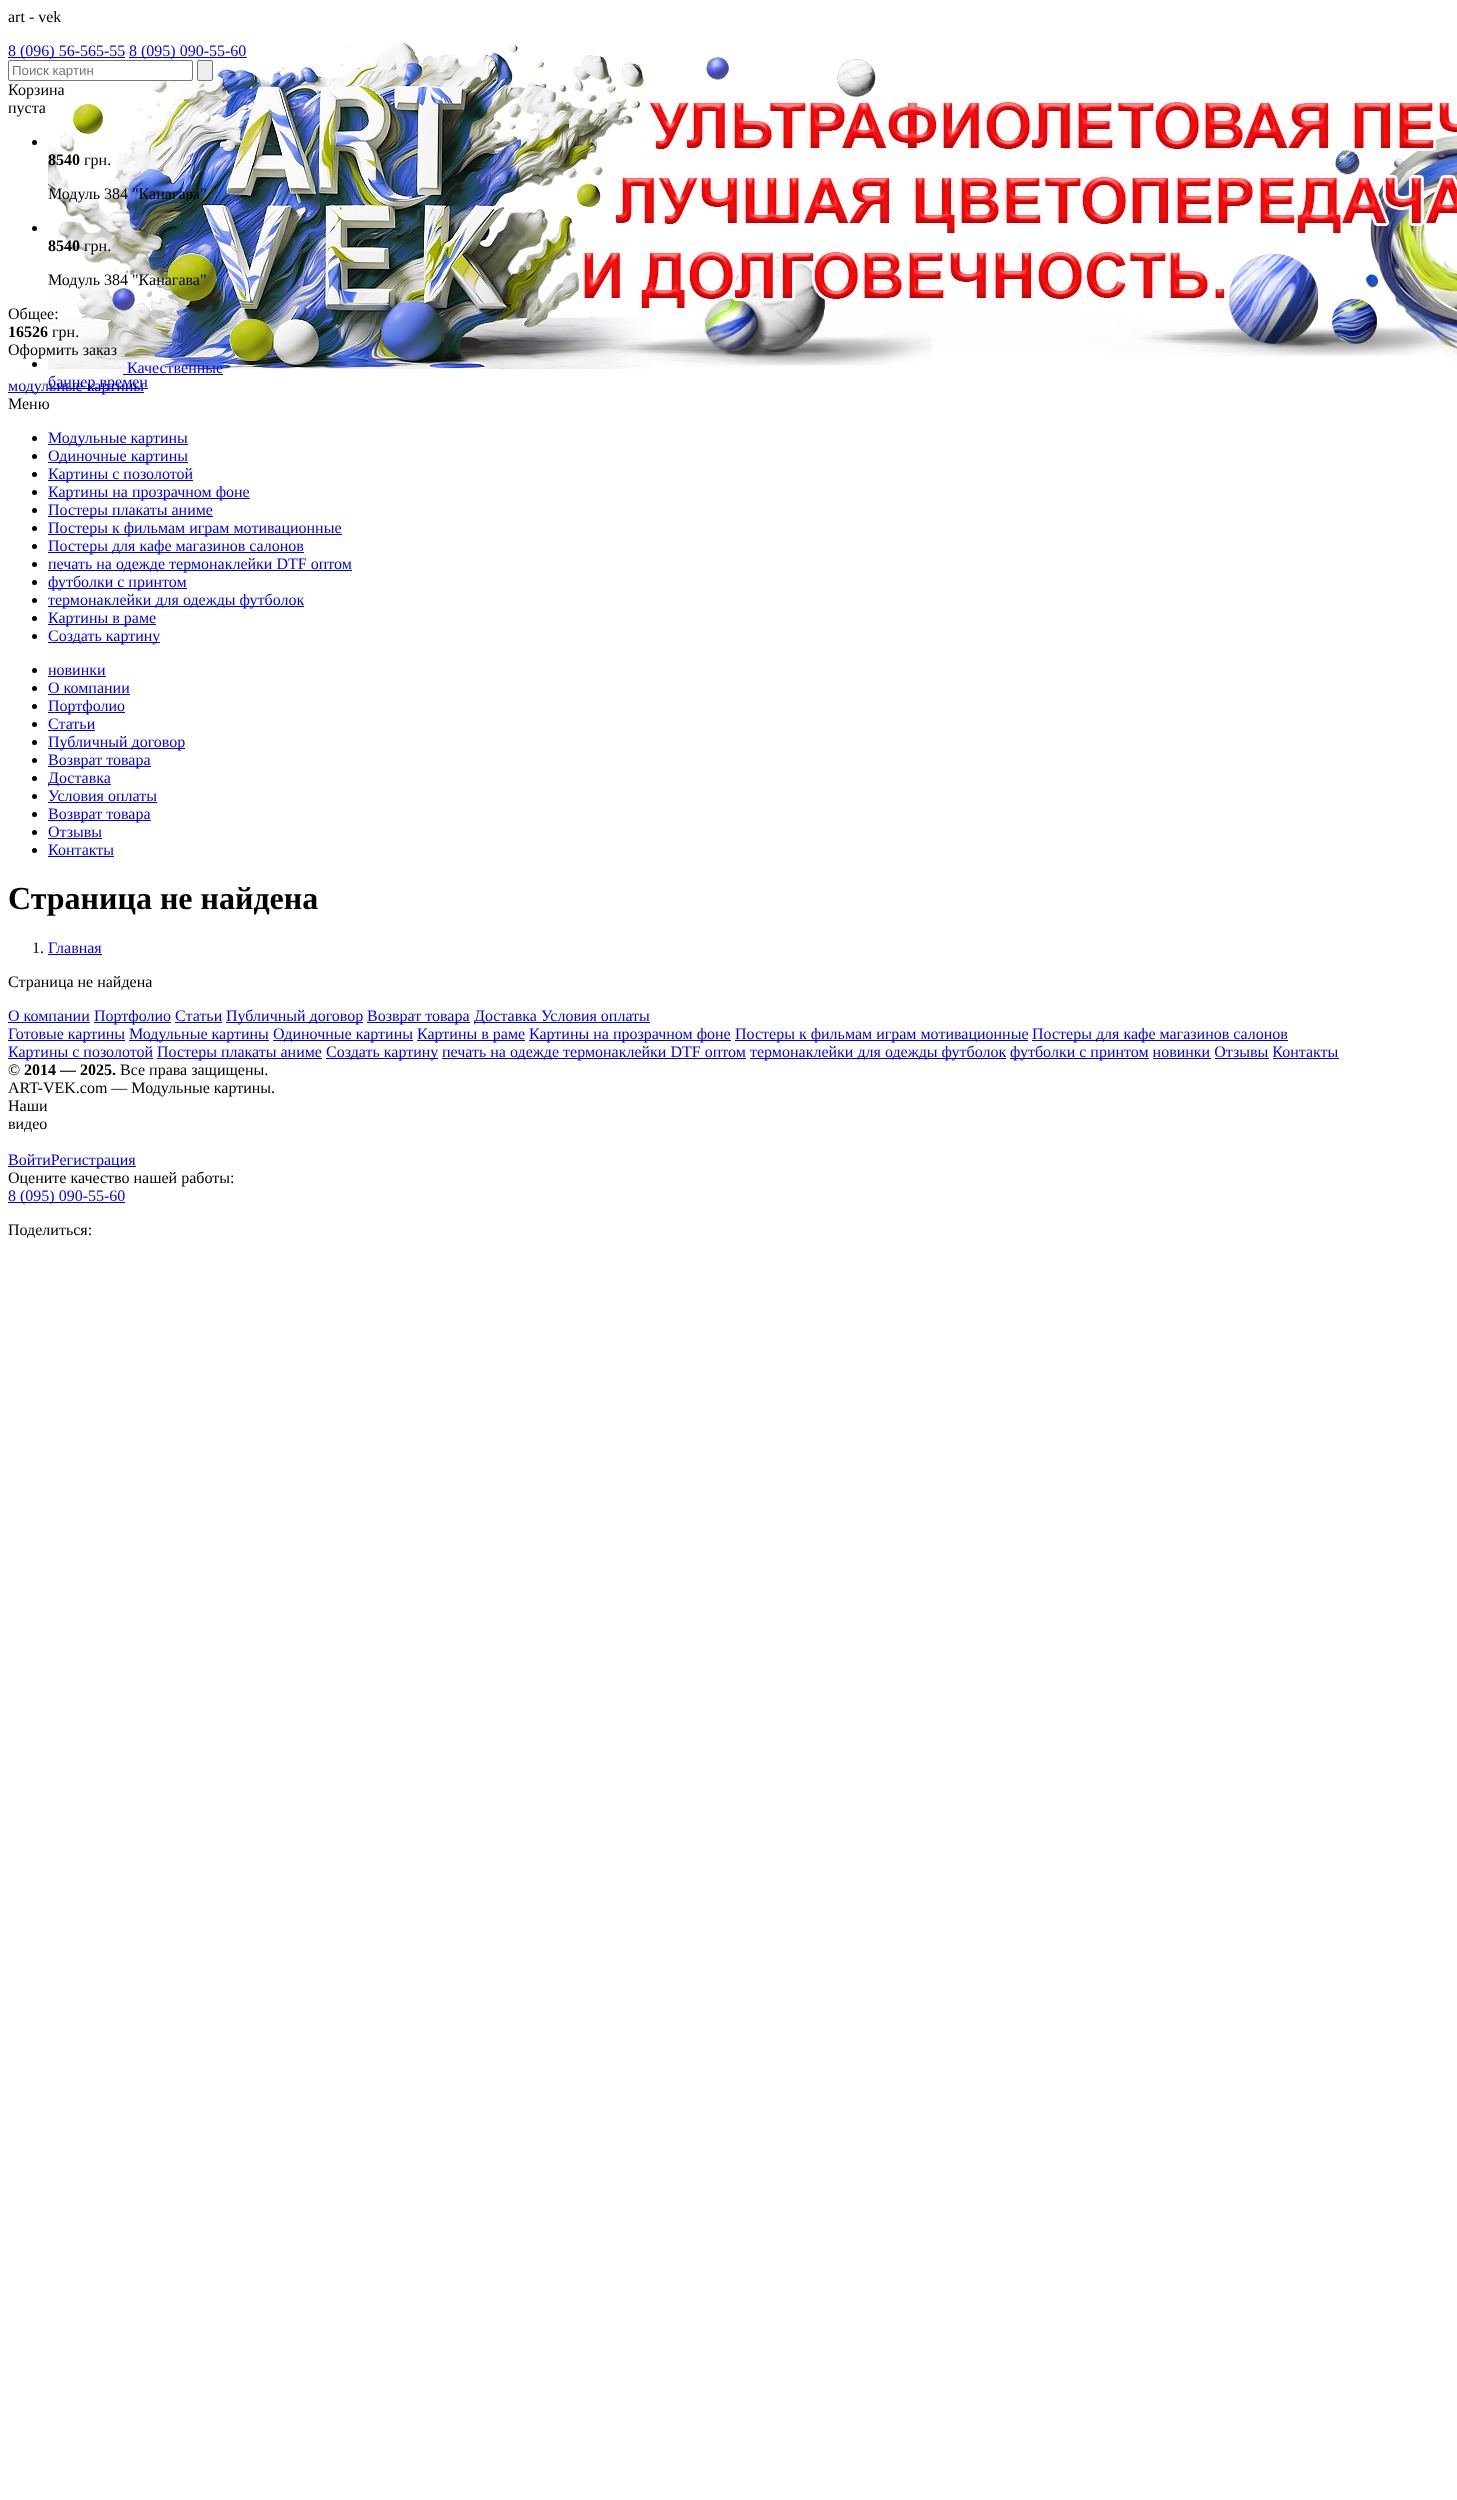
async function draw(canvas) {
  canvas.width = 1457;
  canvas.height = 2500;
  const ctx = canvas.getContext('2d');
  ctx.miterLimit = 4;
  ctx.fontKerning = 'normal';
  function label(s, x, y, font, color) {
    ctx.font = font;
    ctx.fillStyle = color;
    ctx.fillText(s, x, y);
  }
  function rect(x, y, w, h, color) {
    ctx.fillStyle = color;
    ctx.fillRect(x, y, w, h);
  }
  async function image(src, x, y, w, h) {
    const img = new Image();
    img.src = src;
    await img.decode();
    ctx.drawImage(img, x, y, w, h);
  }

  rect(0, 0, 1457, 2500, '#fff');
  label('art - vek', 8, 22, '16px Liberation Serif', '#000');
  await image('assets/img1.png', 48, 42, 1409, 327);
  rect(8, 57, 117, 1, '#00e');
  label('8 (096) 56-565-55', 8, 56, '16px Liberation Serif', '#00e');
  rect(129, 57, 118, 1, '#00e');
  label('8 (095) 090-55-60', 129, 56, '16px Liberation Serif', '#00e');
  ctx.fillStyle = '#fff';
  ctx.beginPath();
  ctx.roundRect(8.5, 60.5, 184, 20, 1.5);
  ctx.fill();
  ctx.strokeStyle = '#767676';
  ctx.stroke();
  label('Поиск картин', 12, 75, '13.25px Liberation Sans', '#757575');
  ctx.fillStyle = '#efefef';
  ctx.beginPath();
  ctx.roundRect(197.5, 60.5, 15, 20, 1.5);
  ctx.fill();
  ctx.stroke();
  label('Корзина', 8, 95, '16px Liberation Serif', '#000');
  label('пуста', 8, 113, '16px Liberation Serif', '#000');
  ctx.beginPath();
  ctx.arc(34.5, 142.5, 2.5, 0, 2 * Math.PI);
  ctx.fill();
  label('8540', 48, 165, 'bold 16px Liberation Serif', '#000');
  label('грн.', 84, 165, '16px Liberation Serif', '#000');
  label('Модуль 384 "Канагава"', 48, 199, '16px Liberation Serif', '#000');
  ctx.beginPath();
  ctx.arc(34.5, 228.5, 2.5, 0, 2 * Math.PI);
  ctx.fill();
  label('8540', 48, 251, 'bold 16px Liberation Serif', '#000');
  label('грн.', 84, 251, '16px Liberation Serif', '#000');
  label('Модуль 384 "Канагава"', 48, 285, '16px Liberation Serif', '#000');
  label('Общее:', 8, 319, '16px Liberation Serif', '#000');
  label('16526', 8, 337, 'bold 16px Liberation Serif', '#000');
  label('грн.', 52, 337, '16px Liberation Serif', '#000');
  label('Оформить заказ', 8, 355, '16px Liberation Serif', '#000');
  label('Качественные', 127, 373, '16px Liberation Serif', '#00e');
  rect(123, 374, 100, 1, '#00e');
  rect(8, 392, 136, 1, '#00e');
  rect(48, 388, 100, 1, '#00e');
  label('баннер времен', 48, 387, '16px Liberation Serif', '#00e');
  label('модульные картины', 8, 391, '16px Liberation Serif', '#00e');
  label('Меню', 8, 409, '16px Liberation Serif', '#000');
  ctx.beginPath();
  ctx.arc(34.5, 438.5, 2.5, 0, 2 * Math.PI);
  ctx.fill();
  rect(48, 444, 140, 1, '#00e');
  label('Модульные картины', 48, 443, '16px Liberation Serif', '#00e');
  ctx.fillStyle = '#000';
  ctx.beginPath();
  ctx.arc(34.5, 456.5, 2.5, 0, 2 * Math.PI);
  ctx.fill();
  rect(48, 462, 140, 1, '#00e');
  label('Одиночные картины', 48, 461, '16px Liberation Serif', '#00e');
  ctx.fillStyle = '#000';
  ctx.beginPath();
  ctx.arc(34.5, 474.5, 2.5, 0, 2 * Math.PI);
  ctx.fill();
  rect(48, 480, 145, 1, '#00e');
  label('Картины с позолотой', 48, 479, '16px Liberation Serif', '#00e');
  ctx.fillStyle = '#000';
  ctx.beginPath();
  ctx.arc(34.5, 492.5, 2.5, 0, 2 * Math.PI);
  ctx.fill();
  rect(48, 498, 202, 1, '#00e');
  label('Картины на прозрачном фоне', 48, 497, '16px Liberation Serif', '#00e');
  ctx.fillStyle = '#000';
  ctx.beginPath();
  ctx.arc(34.5, 510.5, 2.5, 0, 2 * Math.PI);
  ctx.fill();
  rect(48, 516, 165, 1, '#00e');
  label('Постеры плакаты аниме', 48, 515, '16px Liberation Serif', '#00e');
  ctx.fillStyle = '#000';
  ctx.beginPath();
  ctx.arc(34.5, 528.5, 2.5, 0, 2 * Math.PI);
  ctx.fill();
  rect(48, 534, 294, 1, '#00e');
  label('Постеры к фильмам играм мотивационные', 48, 533, '16px Liberation Serif', '#00e');
  ctx.fillStyle = '#000';
  ctx.beginPath();
  ctx.arc(34.5, 546.5, 2.5, 0, 2 * Math.PI);
  ctx.fill();
  rect(48, 552, 256, 1, '#00e');
  label('Постеры для кафе магазинов салонов', 48, 551, '16px Liberation Serif', '#00e');
  ctx.fillStyle = '#000';
  ctx.beginPath();
  ctx.arc(34.5, 564.5, 2.5, 0, 2 * Math.PI);
  ctx.fill();
  rect(48, 570, 304, 1, '#00e');
  label('печать на одежде термонаклейки DTF оптом', 48, 569, '16px Liberation Serif', '#00e');
  ctx.fillStyle = '#000';
  ctx.beginPath();
  ctx.arc(34.5, 582.5, 2.5, 0, 2 * Math.PI);
  ctx.fill();
  rect(48, 588, 139, 1, '#00e');
  label('футболки с принтом', 48, 587, '16px Liberation Serif', '#00e');
  ctx.fillStyle = '#000';
  ctx.beginPath();
  ctx.arc(34.5, 600.5, 2.5, 0, 2 * Math.PI);
  ctx.fill();
  rect(48, 606, 256, 1, '#00e');
  label('термонаклейки для одежды футболок', 48, 605, '16px Liberation Serif', '#00e');
  ctx.fillStyle = '#000';
  ctx.beginPath();
  ctx.arc(34.5, 618.5, 2.5, 0, 2 * Math.PI);
  ctx.fill();
  rect(48, 624, 108, 1, '#00e');
  label('Картины в раме', 48, 623, '16px Liberation Serif', '#00e');
  ctx.fillStyle = '#000';
  ctx.beginPath();
  ctx.arc(34.5, 636.5, 2.5, 0, 2 * Math.PI);
  ctx.fill();
  rect(48, 642, 112, 1, '#00e');
  label('Создать картину', 48, 641, '16px Liberation Serif', '#00e');
  ctx.fillStyle = '#000';
  ctx.beginPath();
  ctx.arc(34.5, 670.5, 2.5, 0, 2 * Math.PI);
  ctx.fill();
  label('новинки', 48, 675, '16px Liberation Serif', '#00e');
  rect(48, 676, 58, 1, '#00e');
  ctx.fillStyle = '#000';
  ctx.beginPath();
  ctx.arc(34.5, 688.5, 2.5, 0, 2 * Math.PI);
  ctx.fill();
  label('О компании', 48, 693, '16px Liberation Serif', '#00e');
  rect(48, 694, 82, 1, '#00e');
  ctx.fillStyle = '#000';
  ctx.beginPath();
  ctx.arc(34.5, 706.5, 2.5, 0, 2 * Math.PI);
  ctx.fill();
  rect(48, 712, 77, 1, '#00e');
  label('Портфолио', 48, 711, '16px Liberation Serif', '#00e');
  ctx.fillStyle = '#000';
  ctx.beginPath();
  ctx.arc(34.5, 724.5, 2.5, 0, 2 * Math.PI);
  ctx.fill();
  label('Статьи', 48, 729, '16px Liberation Serif', '#00e');
  rect(48, 730, 47, 1, '#00e');
  ctx.fillStyle = '#000';
  ctx.beginPath();
  ctx.arc(34.5, 742.5, 2.5, 0, 2 * Math.PI);
  ctx.fill();
  rect(48, 748, 137, 1, '#00e');
  label('Публичный договор', 48, 747, '16px Liberation Serif', '#00e');
  ctx.fillStyle = '#000';
  ctx.beginPath();
  ctx.arc(34.5, 760.5, 2.5, 0, 2 * Math.PI);
  ctx.fill();
  rect(48, 766, 103, 1, '#00e');
  label('Возврат товара', 48, 765, '16px Liberation Serif', '#00e');
  ctx.fillStyle = '#000';
  ctx.beginPath();
  ctx.arc(34.5, 778.5, 2.5, 0, 2 * Math.PI);
  ctx.fill();
  rect(48, 784, 63, 1, '#00e');
  label('Доставка', 48, 783, '16px Liberation Serif', '#00e');
  ctx.fillStyle = '#000';
  ctx.beginPath();
  ctx.arc(34.5, 796.5, 2.5, 0, 2 * Math.PI);
  ctx.fill();
  label('Условия оплаты', 48, 801, '16px Liberation Serif', '#00e');
  rect(48, 802, 109, 1, '#00e');
  ctx.fillStyle = '#000';
  ctx.beginPath();
  ctx.arc(34.5, 814.5, 2.5, 0, 2 * Math.PI);
  ctx.fill();
  rect(48, 820, 103, 1, '#00e');
  label('Возврат товара', 48, 819, '16px Liberation Serif', '#00e');
  ctx.fillStyle = '#000';
  ctx.beginPath();
  ctx.arc(34.5, 832.5, 2.5, 0, 2 * Math.PI);
  ctx.fill();
  label('Отзывы', 48, 837, '16px Liberation Serif', '#00e');
  rect(48, 838, 54, 1, '#00e');
  ctx.fillStyle = '#000';
  ctx.beginPath();
  ctx.arc(34.5, 850.5, 2.5, 0, 2 * Math.PI);
  ctx.fill();
  label('Контакты', 48, 855, '16px Liberation Serif', '#00e');
  rect(48, 856, 66, 1, '#00e');
  label('Страница не найдена', 8, 909, 'bold 32px Liberation Serif', '#000');
  label('1.', 32, 953, '16px Liberation Serif', '#000');
  label('Главная', 48, 953, '16px Liberation Serif', '#00e');
  rect(48, 954, 54, 1, '#00e');
  label('Страница не найдена', 8, 987, '16px Liberation Serif', '#000');
  label('О компании', 8, 1021, '16px Liberation Serif', '#00e');
  rect(8, 1022, 82, 1, '#00e');
  rect(94, 1022, 77, 1, '#00e');
  label('Портфолио Статьи', 94, 1021, '16px Liberation Serif', '#00e');
  rect(226, 1022, 137, 1, '#00e');
  label('Публичный договор', 226, 1021, '16px Liberation Serif', '#00e');
  rect(367, 1022, 103, 1, '#00e');
  label('Возврат товара', 367, 1021, '16px Liberation Serif', '#00e');
  rect(474, 1022, 176, 1, '#00e');
  label('Доставка Условия оплаты', 474, 1021, '16px Liberation Serif', '#00e');
  rect(175, 1022, 47, 1, '#00e');
  rect(8, 1040, 117, 1, '#00e');
  label('Готовые картины', 8, 1039, '16px Liberation Serif', '#00e');
  rect(129, 1040, 140, 1, '#00e');
  label('Модульные картины', 129, 1039, '16px Liberation Serif', '#00e');
  rect(273, 1040, 140, 1, '#00e');
  label('Одиночные картины', 273, 1039, '16px Liberation Serif', '#00e');
  rect(417, 1040, 108, 1, '#00e');
  label('Картины в раме', 417, 1039, '16px Liberation Serif', '#00e');
  rect(529, 1040, 202, 1, '#00e');
  label('Картины на прозрачном фоне', 529, 1039, '16px Liberation Serif', '#00e');
  rect(735, 1040, 293, 1, '#00e');
  label('Постеры к фильмам играм мотивационные', 735, 1039, '16px Liberation Serif', '#00e');
  rect(1032, 1040, 256, 1, '#00e');
  label('Постеры для кафе магазинов салонов', 1032, 1039, '16px Liberation Serif', '#00e');
  rect(8, 1058, 145, 1, '#00e');
  label('Картины с позолотой', 8, 1057, '16px Liberation Serif', '#00e');
  rect(157, 1058, 165, 1, '#00e');
  label('Постеры плакаты аниме', 157, 1057, '16px Liberation Serif', '#00e');
  rect(326, 1058, 112, 1, '#00e');
  label('Создать картину', 326, 1057, '16px Liberation Serif', '#00e');
  rect(442, 1058, 304, 1, '#00e');
  label('печать на одежде термонаклейки DTF оптом', 442, 1057, '16px Liberation Serif', '#00e');
  rect(750, 1058, 256, 1, '#00e');
  label('термонаклейки для одежды футболок', 750, 1057, '16px Liberation Serif', '#00e');
  rect(1010, 1058, 139, 1, '#00e');
  label('футболки с принтом новинки Отзывы Контакты', 1010, 1057, '16px Liberation Serif', '#00e');
  rect(1153, 1058, 58, 1, '#00e');
  rect(1215, 1058, 54, 1, '#00e');
  rect(1273, 1058, 66, 1, '#00e');
  label('©', 8, 1075, '16px Liberation Serif', '#000');
  label('2014 — 2025.', 24, 1075, 'bold 16px Liberation Serif', '#000');
  label('Все права защищены.', 120, 1075, '16px Liberation Serif', '#000');
  label('ART-VEK.com — Модульные картины.', 8, 1093, '16px Liberation Serif', '#000');
  label('Наши', 8, 1111, '16px Liberation Serif', '#000');
  label('видео', 8, 1129, '16px Liberation Serif', '#000');
  rect(8, 1166, 128, 1, '#00e');
  label('ВойтиРегистрация', 8, 1165, '16px Liberation Serif', '#00e');
  label('Оцените качество нашей работы:', 8, 1183, '16px Liberation Serif', '#000');
  rect(8, 1202, 117, 1, '#00e');
  label('8 (095) 090-55-60', 8, 1201, '16px Liberation Serif', '#00e');
  label('Поделиться:', 8, 1235, '16px Liberation Serif', '#000');
  ctx.beginPath();
  ctx.arc(34.5, 364.5, 2.5, 0, 2 * Math.PI);
  ctx.fill();
}

draw(document.querySelector('canvas'));
